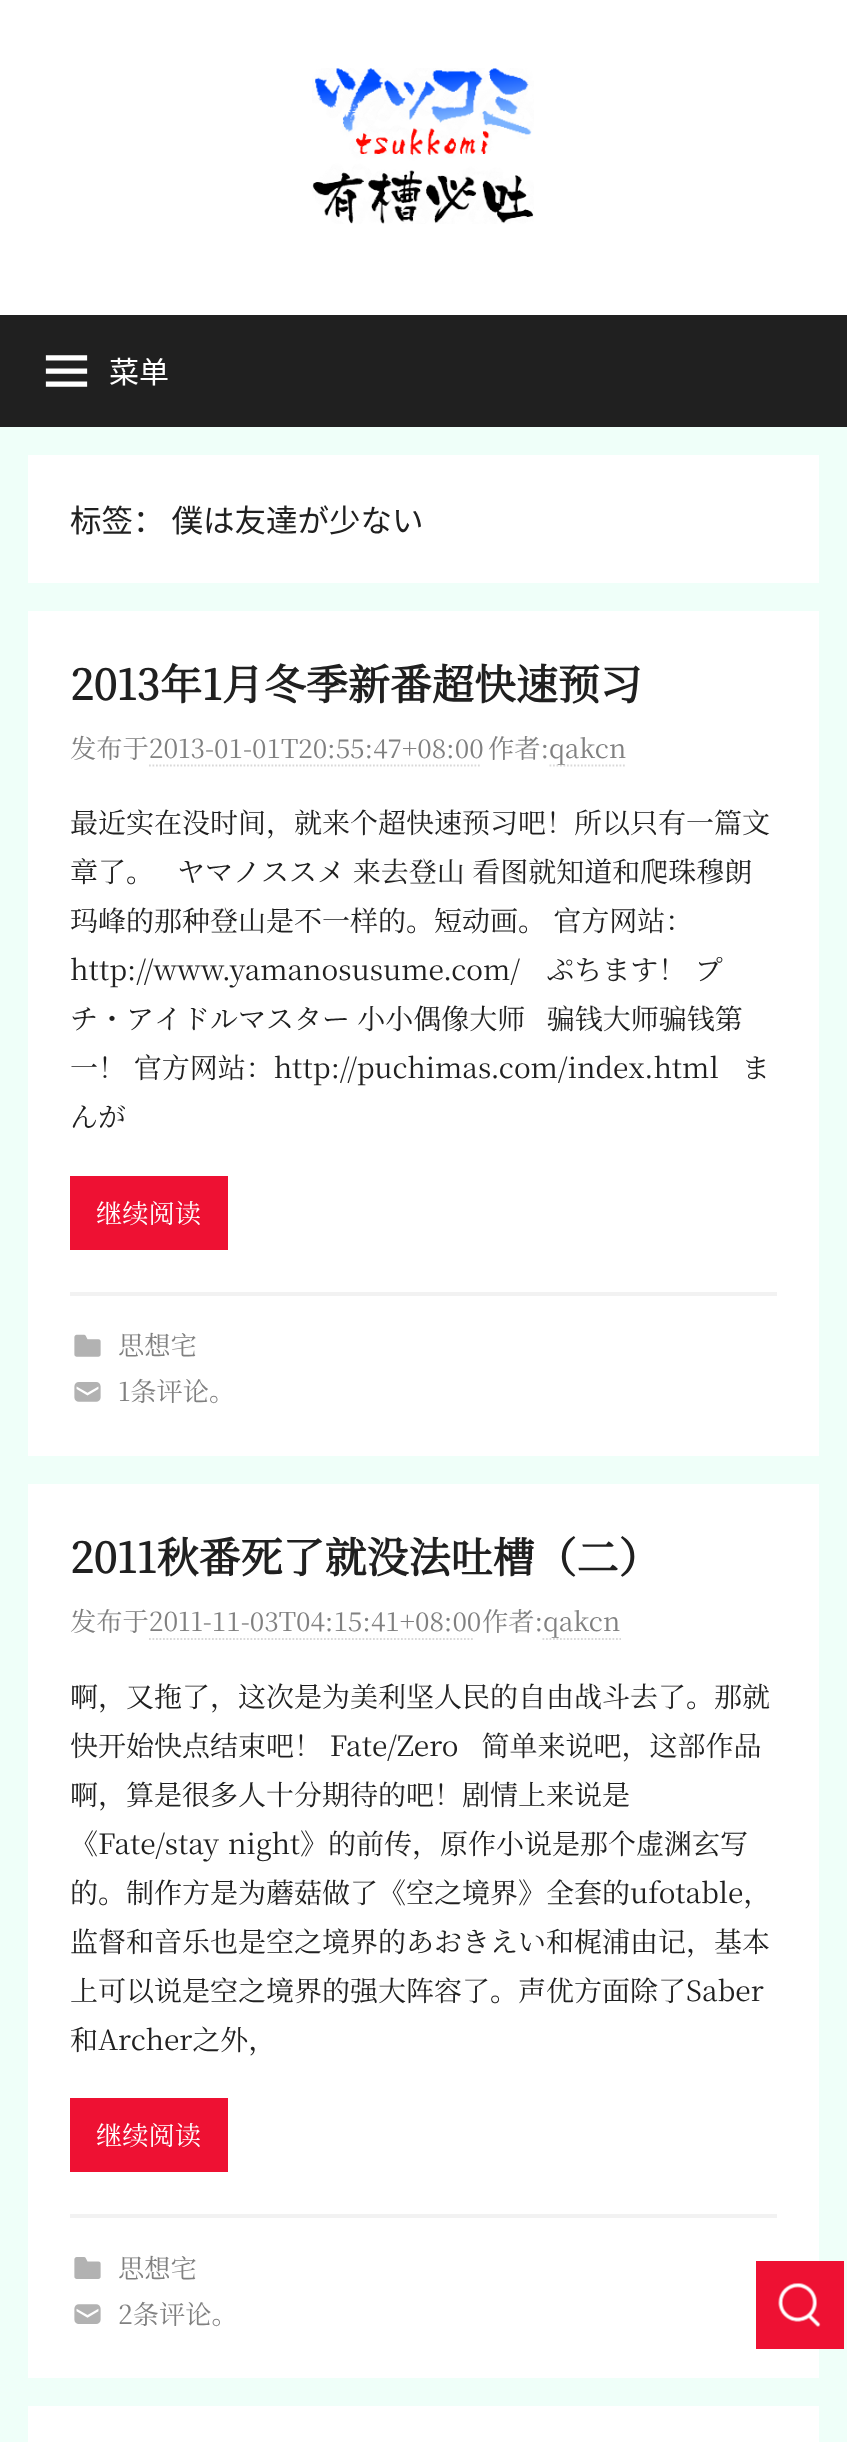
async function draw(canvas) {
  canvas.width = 847;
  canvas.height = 2442;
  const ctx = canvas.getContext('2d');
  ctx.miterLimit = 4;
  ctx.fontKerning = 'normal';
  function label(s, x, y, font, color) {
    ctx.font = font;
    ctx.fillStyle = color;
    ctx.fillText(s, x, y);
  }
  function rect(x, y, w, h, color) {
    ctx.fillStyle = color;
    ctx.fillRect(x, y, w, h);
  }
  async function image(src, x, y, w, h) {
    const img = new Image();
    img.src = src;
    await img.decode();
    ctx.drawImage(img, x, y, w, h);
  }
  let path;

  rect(0, 0, 847, 2442, '#effff9');
  rect(0, 0, 847, 315, '#fff');
  await image('assets/img1.png', 312, 68, 222, 156);
  rect(0, 315, 847, 112, '#202020');
  await image('assets/img2.png', 45, 355, 43, 32);
  label('菜单', 109, 383, '30px Noto Sans CJK SC', '#fff');
  rect(28, 455, 791, 128, '#fff');
  label('标签： 僕は友達が少ない', 70, 532, '31.5px Noto Sans CJK SC', '#202020');
  rect(28, 611, 791, 845, '#fff');
  label('2013年1月冬季新番超快速预习', 70, 700, 'bold 42px Noto Serif CJK SC', '#202020');
  label('发布于2013-01-01T20:55:47+08:00', 70, 758, '26.25px Noto Serif CJK SC', '#808080');
  path = new Path2D('M149 765.5H481');
  ctx.strokeStyle = '#d9d9d9';
  ctx.lineWidth = 1.8;
  ctx.setLineDash([1.75, 1.75]);
  ctx.stroke(path);
  label('作者:', 488, 758, '26.25px Noto Serif CJK SC', '#808080');
  path = new Path2D('M549.5 765.5H626.5');
  ctx.stroke(path);
  label('qakcn', 549, 758, '26.25px Noto Serif CJK SC', '#808080');
  label('最近实在没时间，就来个超快速预习吧！所以只有一篇文', 70, 833, '28px Noto Serif CJK SC', '#202020');
  ctx.wordSpacing = '0.5px';
  label('章了。   ヤマノススメ 来去登山 看图就知道和爬珠穆朗', 70, 882, '28px Noto Serif CJK SC', '#202020');
  ctx.wordSpacing = '0px';
  label('玛峰的那种登山是不一样的。短动画。 官方网站：', 70, 931, '28px Noto Serif CJK SC', '#202020');
  ctx.wordSpacing = '1.5px';
  label('http://www.yamanosusume.com/   ぷちます！ プ', 70, 980, '28px Noto Serif CJK SC', '#202020');
  ctx.wordSpacing = '0px';
  label('チ・アイドルマスター 小小偶像大师   骗钱大师骗钱第', 70, 1029, '28px Noto Serif CJK SC', '#202020');
  ctx.wordSpacing = '0.5px';
  label('一！ 官方网站：http://puchimas.com/index.html   ま', 70, 1078, '28px Noto Serif CJK SC', '#202020');
  ctx.wordSpacing = '0px';
  label('んが', 70, 1127, '28px Noto Serif CJK SC', '#202020');
  rect(70, 1176, 158, 74, '#e13');
  label('继续阅读', 96, 1223, '26.25px Noto Serif CJK SC', '#fff');
  rect(70, 1292, 707, 4, '#f2f2f2');
  await image('assets/img3.png', 74, 1334, 27, 23);
  label('思想宅', 118, 1355, '26.25px Noto Serif CJK SC', '#808080');
  await image('assets/img4.png', 74, 1382, 27, 20);
  label('1条评论。', 118, 1401, '26.25px Noto Serif CJK SC', '#808080');
  rect(28, 1484, 791, 894, '#fff');
  label('2011秋番死了就没法吐槽（二）', 70, 1573, 'bold 42px Noto Serif CJK SC', '#202020');
  label('发布于2011-11-03T04:15:41+08:00', 70, 1631, '26.25px Noto Serif CJK SC', '#808080');
  path = new Path2D('M149 1639H474');
  ctx.stroke(path);
  label('作者:', 482, 1631, '26.25px Noto Serif CJK SC', '#808080');
  label('qakcn', 543, 1631, '26.25px Noto Serif CJK SC', '#808080');
  path = new Path2D('M542.5 1639H621');
  ctx.stroke(path);
  label('啊，又拖了，这次是为美利坚人民的自由战斗去了。那就', 70, 1707, '28px Noto Serif CJK SC', '#202020');
  ctx.wordSpacing = '0.5px';
  label('快开始快点结束吧！ Fate/Zero   简单来说吧，这部作品', 70, 1756, '28px Noto Serif CJK SC', '#202020');
  ctx.wordSpacing = '0px';
  label('啊，算是很多人十分期待的吧！剧情上来说是', 70, 1805, '28px Noto Serif CJK SC', '#202020');
  ctx.wordSpacing = '2px';
  label('《Fate/stay night》的前传，原作小说是那个虚渊玄写', 70, 1854, '28px Noto Serif CJK SC', '#202020');
  ctx.wordSpacing = '0px';
  label('的。制作方是为蘑菇做了《空之境界》全套的ufotable，', 70, 1903, '28px Noto Serif CJK SC', '#202020');
  label('监督和音乐也是空之境界的あおきえい和梶浦由记，基本', 70, 1952, '28px Noto Serif CJK SC', '#202020');
  label('上可以说是空之境界的强大阵容了。声优方面除了Saber', 70, 2001, '28px Noto Serif CJK SC', '#202020');
  label('和Archer之外，', 70, 2050, '28px Noto Serif CJK SC', '#202020');
  rect(70, 2098, 158, 74, '#e13');
  label('继续阅读', 96, 2145, '26.25px Noto Serif CJK SC', '#fff');
  rect(70, 2214, 707, 4, '#f2f2f2');
  await image('assets/img5.png', 74, 2257, 27, 22);
  label('思想宅', 118, 2278, '26.25px Noto Serif CJK SC', '#808080');
  await image('assets/img6.png', 74, 2304, 27, 20);
  label('2条评论。', 118, 2324, '26.25px Noto Serif CJK SC', '#808080');
  rect(28, 2406, 791, 36, '#fff');
  rect(756, 2261, 88, 88, '#e13');
  await image('assets/img7.png', 778, 2283, 43, 44);
}

draw(document.querySelector('canvas'));
